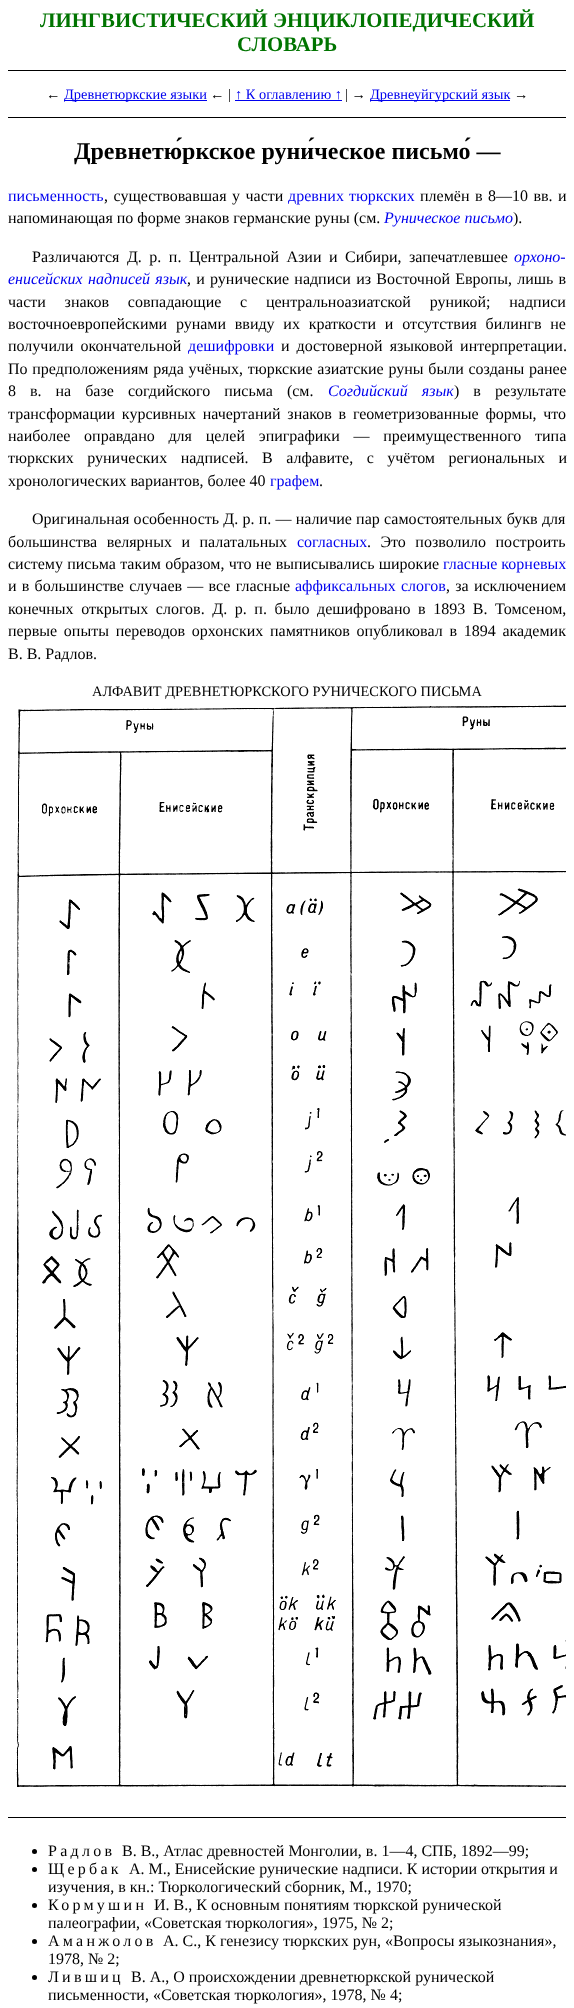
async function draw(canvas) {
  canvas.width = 574;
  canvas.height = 2008;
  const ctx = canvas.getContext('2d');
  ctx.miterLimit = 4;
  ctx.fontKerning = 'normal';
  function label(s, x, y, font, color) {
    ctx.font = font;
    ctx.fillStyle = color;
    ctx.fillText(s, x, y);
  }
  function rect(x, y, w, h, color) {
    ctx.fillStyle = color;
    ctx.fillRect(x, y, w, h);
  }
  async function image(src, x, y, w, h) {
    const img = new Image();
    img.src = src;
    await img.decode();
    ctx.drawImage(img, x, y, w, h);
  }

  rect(0, 0, 574, 2008, '#fff');
  label('ЛИНГВИСТИЧЕСКИЙ ЭНЦИКЛОПЕДИЧЕСКИЙ', 40, 27, 'bold 20.8px Liberation Serif', '#007400');
  label('СЛОВАРЬ', 237, 51, 'bold 20.8px Liberation Serif', '#007400');
  rect(8, 70, 558, 1, '#000');
  rect(8, 117, 558, 1, '#000');
  label('←', 46, 99, '14.4px Liberation Serif', '#000');
  rect(64, 100, 143, 1, '#00e');
  label('Древнетюркские языки', 64, 99, '14.4px Liberation Serif', '#00e');
  label('← |', 210, 99, '14.4px Liberation Serif', '#000');
  label('↑ К оглавлению ↑', 235, 99, '14.4px Liberation Serif', '#00e');
  rect(235, 100, 107, 1, '#00e');
  label('| →', 345, 99, '14.4px Liberation Serif', '#000');
  rect(370, 100, 140, 1, '#00e');
  label('Древнеуйгурский язык', 370, 99, '14.4px Liberation Serif', '#00e');
  label('→', 514, 99, '14.4px Liberation Serif', '#000');
  label('Древнетю́ркское руни́ческое письмо́ —', 74, 159, 'bold 24px Liberation Serif', '#000');
  label('письменность', 8, 201, '16px Liberation Serif', '#00e');
  ctx.wordSpacing = '1.5px';
  label(', существовавшая у части', 104, 201, '16px Liberation Serif', '#000');
  ctx.wordSpacing = '1px';
  label('древних тюркских', 288, 201, '16px Liberation Serif', '#00e');
  ctx.wordSpacing = '1.5px';
  label('племён в 8—10 вв. и', 420, 201, '16px Liberation Serif', '#000');
  ctx.wordSpacing = '0px';
  label('напоминающая по форме знаков германские руны (см.', 8, 223, '16px Liberation Serif', '#000');
  label('Руническое письмо', 384, 223, 'italic 16px Liberation Serif', '#00e');
  label(').', 513, 223, '16px Liberation Serif', '#000');
  ctx.wordSpacing = '3.5px';
  label('Различаются Д. р. п. Центральной Азии и Сибири, запечатлевшее', 32, 262, '16px Liberation Serif', '#000');
  ctx.wordSpacing = '0px';
  label('орхоно-', 514, 262, 'italic 16px Liberation Serif', '#00e');
  ctx.wordSpacing = '1.25px';
  label('енисейских надписей язык', 8, 284, 'italic 16px Liberation Serif', '#00e');
  label(', и рунические надписи из Восточной Европы, лишь в', 187, 284, '16px Liberation Serif', '#000');
  ctx.wordSpacing = '14.75px';
  label('части знаков совпадающие с центральноазиатской руникой; надписи', 8, 307, '16px Liberation Serif', '#000');
  ctx.wordSpacing = '4.75px';
  label('восточноевропейскими рунами ввиду их краткости и отсутствия билингв не', 8, 329, '16px Liberation Serif', '#000');
  ctx.wordSpacing = '3px';
  label('получили окончательной', 8, 351, '16px Liberation Serif', '#000');
  ctx.wordSpacing = '0px';
  label('дешифровки', 188, 351, '16px Liberation Serif', '#00e');
  ctx.wordSpacing = '3px';
  label('и достоверной языковой интерпретации.', 281, 351, '16px Liberation Serif', '#000');
  ctx.wordSpacing = '0.75px';
  label('По предположениям ряда учёных, тюркские азиатские руны были созданы ранее', 8, 374, '16px Liberation Serif', '#000');
  ctx.wordSpacing = '10px';
  label('8 в. на базе согдийского письма (см.', 8, 396, '16px Liberation Serif', '#000');
  label('Согдийский язык', 328, 396, 'italic 16px Liberation Serif', '#00e');
  label(') в результате', 454, 396, '16px Liberation Serif', '#000');
  ctx.wordSpacing = '2.75px';
  label('трансформации курсивных начертаний знаков в геометризованные формы, что', 8, 419, '16px Liberation Serif', '#000');
  ctx.wordSpacing = '9.75px';
  label('наиболее оправдано для целей эпиграфики — преимущественного типа', 8, 441, '16px Liberation Serif', '#000');
  ctx.wordSpacing = '9.5px';
  label('тюркских рунических надписей. В алфавите, с учётом региональных и', 8, 463, '16px Liberation Serif', '#000');
  ctx.wordSpacing = '0px';
  label('хронологических вариантов, более 40', 8, 486, '16px Liberation Serif', '#000');
  label('графем', 270, 486, '16px Liberation Serif', '#00e');
  label('.', 319, 486, '16px Liberation Serif', '#000');
  ctx.wordSpacing = '0.25px';
  label('Оригинальная особенность Д. р. п. — наличие пар самостоятельных букв для', 32, 524, '16px Liberation Serif', '#000');
  ctx.wordSpacing = '5.5px';
  label('большинства велярных и палатальных', 8, 547, '16px Liberation Serif', '#000');
  ctx.wordSpacing = '0px';
  label('согласных', 297, 547, '16px Liberation Serif', '#00e');
  ctx.wordSpacing = '5.5px';
  label('. Это позволило построить', 367, 547, '16px Liberation Serif', '#000');
  ctx.wordSpacing = '0.25px';
  label('систему письма таким образом, что не выписывались широкие', 8, 569, '16px Liberation Serif', '#000');
  ctx.wordSpacing = '0px';
  label('гласные корневых', 443, 569, '16px Liberation Serif', '#00e');
  ctx.wordSpacing = '1.25px';
  label('и в большинстве случаев — все гласные', 8, 591, '16px Liberation Serif', '#000');
  ctx.wordSpacing = '0px';
  label('аффиксальных', 295, 591, '16px Liberation Serif', '#00e');
  label('слогов', 401, 591, '16px Liberation Serif', '#00e');
  ctx.wordSpacing = '1.25px';
  label(', за исключением', 446, 591, '16px Liberation Serif', '#000');
  ctx.wordSpacing = '3.6px';
  label('конечных открытых слогов. Д. р. п. было дешифровано в 1893 В. Томсеном,', 8, 614, '16px Liberation Serif', '#000');
  ctx.wordSpacing = '2.75px';
  label('первые опыты переводов орхонских памятников опубликовал в 1894 академик', 8, 636, '16px Liberation Serif', '#000');
  ctx.wordSpacing = '0px';
  label('В. В. Радлов.', 8, 659, '16px Liberation Serif', '#000');
  label('АЛФАВИТ ДРЕВНЕТЮРКСКОГО РУНИЧЕСКОГО ПИСЬМА', 92, 696, '14.4px Liberation Serif', '#000');
  await image('assets/img1.png', 16, 705, 550, 1082);
  rect(8, 1817, 558, 1, '#000');
  ctx.beginPath();
  ctx.arc(34.5, 1851.5, 2.5, 0, 2 * Math.PI);
  ctx.fill();
  ctx.letterSpacing = '3.25px';
  label('Радлов', 48, 1856, '16px Liberation Serif', '#000');
  ctx.letterSpacing = '0px';
  label('В. В., Атлас древностей Монголии, в. 1—4, СПБ, 1892—99;', 122, 1856, '16px Liberation Serif', '#000');
  ctx.beginPath();
  ctx.arc(34.5, 1869.5, 2.5, 0, 2 * Math.PI);
  ctx.fill();
  ctx.letterSpacing = '3.25px';
  label('Щербак', 48, 1874, '16px Liberation Serif', '#000');
  ctx.letterSpacing = '0px';
  label('А. М., Енисейские рунические надписи. К истории открытия и', 129, 1874, '16px Liberation Serif', '#000');
  label('изучения, в кн.: Тюркологический сборник, М., 1970;', 48, 1892, '16px Liberation Serif', '#000');
  ctx.beginPath();
  ctx.arc(34.5, 1905.5, 2.5, 0, 2 * Math.PI);
  ctx.fill();
  ctx.letterSpacing = '3.25px';
  label('Кормушин', 48, 1910, '16px Liberation Serif', '#000');
  ctx.letterSpacing = '0px';
  label('И. В., К основным понятиям тюркской рунической', 154, 1910, '16px Liberation Serif', '#000');
  label('палеографии, «Советская тюркология», 1975, № 2;', 48, 1928, '16px Liberation Serif', '#000');
  ctx.beginPath();
  ctx.arc(34.5, 1941.5, 2.5, 0, 2 * Math.PI);
  ctx.fill();
  ctx.letterSpacing = '3.25px';
  label('Аманжолов', 48, 1946, '16px Liberation Serif', '#000');
  ctx.letterSpacing = '0px';
  label('А. С., К генезису тюркских рун, «Вопросы языкознания»,', 163, 1946, '16px Liberation Serif', '#000');
  label('1978, № 2;', 48, 1964, '16px Liberation Serif', '#000');
  ctx.beginPath();
  ctx.arc(34.5, 1977.5, 2.5, 0, 2 * Math.PI);
  ctx.fill();
  ctx.letterSpacing = '3.25px';
  label('Лившиц', 48, 1982, '16px Liberation Serif', '#000');
  ctx.letterSpacing = '0px';
  label('В. А., О происхождении древнетюркской рунической', 131, 1982, '16px Liberation Serif', '#000');
  label('письменности, «Советская тюркология», 1978, № 4;', 48, 2000, '16px Liberation Serif', '#000');
}

draw(document.querySelector('canvas'));
